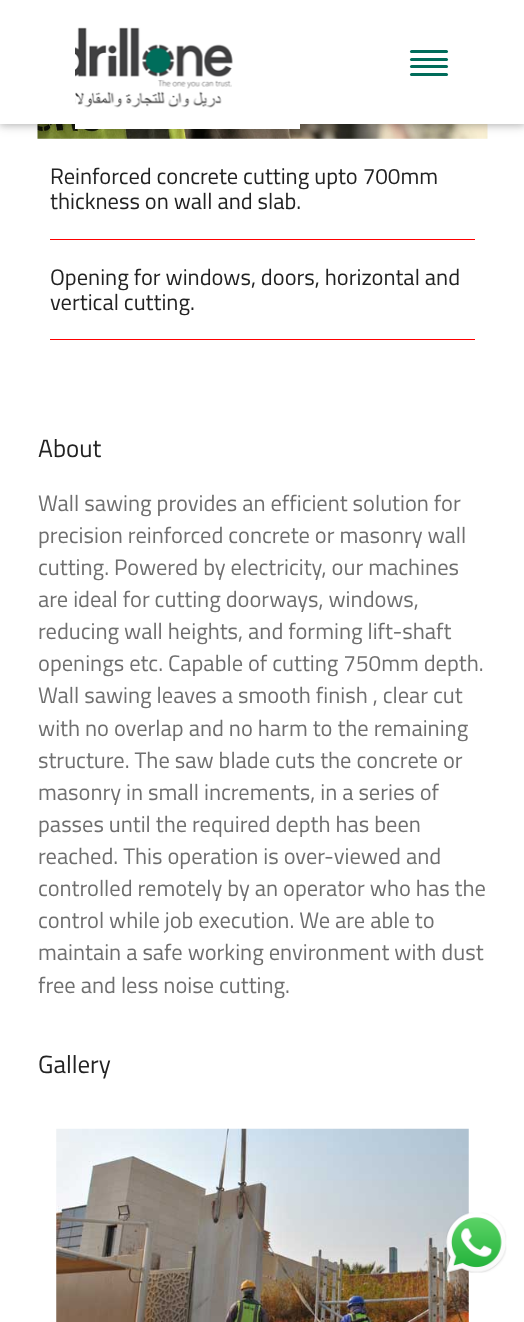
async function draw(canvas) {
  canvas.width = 524;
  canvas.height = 1322;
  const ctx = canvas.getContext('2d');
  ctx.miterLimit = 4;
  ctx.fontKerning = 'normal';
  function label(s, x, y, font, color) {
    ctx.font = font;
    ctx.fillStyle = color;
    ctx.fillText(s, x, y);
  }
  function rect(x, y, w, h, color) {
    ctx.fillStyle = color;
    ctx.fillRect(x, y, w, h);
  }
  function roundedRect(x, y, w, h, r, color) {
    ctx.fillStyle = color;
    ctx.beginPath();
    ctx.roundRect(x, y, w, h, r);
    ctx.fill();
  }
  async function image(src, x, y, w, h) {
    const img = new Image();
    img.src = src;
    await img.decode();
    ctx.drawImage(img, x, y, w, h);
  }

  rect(0, 0, 524, 1322, '#fff');
  await image('assets/img2.png', 37, 124, 451, 15);
  ctx.fillStyle = '#0000001f';
  ctx.filter = 'blur(6px)';
  ctx.beginPath();
  ctx.rect(0, 3, 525, 123);
  ctx.fill();
  ctx.filter = 'none';
  ctx.fillStyle = '#00000029';
  ctx.filter = 'blur(3px)';
  ctx.beginPath();
  ctx.rect(0, 3, 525, 123);
  ctx.fill();
  ctx.filter = 'none';
  rect(0, 0, 524, 124, '#fff');
  rect(75, 124, 225, 5, '#fff');
  await image('assets/img1.png', 75, 27, 158, 81);
  roundedRect(410, 50, 38, 3, 1.5, '#006c5a');
  roundedRect(410, 58, 38, 3, 1.5, '#006c5a');
  roundedRect(410, 65, 38, 3, 1.5, '#006c5a');
  roundedRect(410, 73, 38, 3, 1.5, '#006c5a');
  label('Reinforced concrete cutting upto 700mm', 50, 184, '22.5px Titillium Web', '#222');
  label('thickness on wall and slab.', 50, 209, '22.5px Titillium Web', '#222');
  rect(50, 239, 425, 1, '#f00');
  label('Opening for windows, doors, horizontal and', 50, 285, '22.5px Titillium Web', '#222');
  label('vertical cutting.', 50, 310, '22.5px Titillium Web', '#222');
  rect(50, 339, 425, 1, '#f00');
  label('About', 38, 457, '25px Titillium Web', '#222');
  label('Wall sawing provides an efficient solution for', 38, 511, '22.5px Titillium Web', '#6f6f6f');
  label('precision reinforced concrete or masonry wall', 38, 543, '22.5px Titillium Web', '#6f6f6f');
  label('cutting. Powered by electricity, our machines', 38, 575, '22.5px Titillium Web', '#6f6f6f');
  label('are ideal for cutting doorways, windows,', 38, 607, '22.5px Titillium Web', '#6f6f6f');
  label('reducing wall heights, and forming lift-shaft', 38, 639, '22.5px Titillium Web', '#6f6f6f');
  label('openings etc. Capable of cutting 750mm depth.', 38, 671, '22.5px Titillium Web', '#6f6f6f');
  label('Wall sawing leaves a smooth finish , clear cut', 38, 703, '22.5px Titillium Web', '#6f6f6f');
  label('with no overlap and no harm to the remaining', 38, 736, '22.5px Titillium Web', '#6f6f6f');
  label('structure. The saw blade cuts the concrete or', 38, 768, '22.5px Titillium Web', '#6f6f6f');
  label('masonry in small increments, in a series of', 38, 800, '22.5px Titillium Web', '#6f6f6f');
  label('passes until the required depth has been', 38, 832, '22.5px Titillium Web', '#6f6f6f');
  label('reached. This operation is over-viewed and', 38, 864, '22.5px Titillium Web', '#6f6f6f');
  label('controlled remotely by an operator who has the', 38, 896, '22.5px Titillium Web', '#6f6f6f');
  label('control while job execution. We are able to', 38, 928, '22.5px Titillium Web', '#6f6f6f');
  label('maintain a safe working environment with dust', 38, 960, '22.5px Titillium Web', '#6f6f6f');
  label('free and less noise cutting.', 38, 993, '22.5px Titillium Web', '#6f6f6f');
  label('Gallery', 38, 1073, '25px Titillium Web', '#222');
  await image('assets/img3.png', 56, 1128, 413, 194);
  await image('assets/img4.png', 446, 1212, 61, 61);
}

draw(document.querySelector('canvas'));
